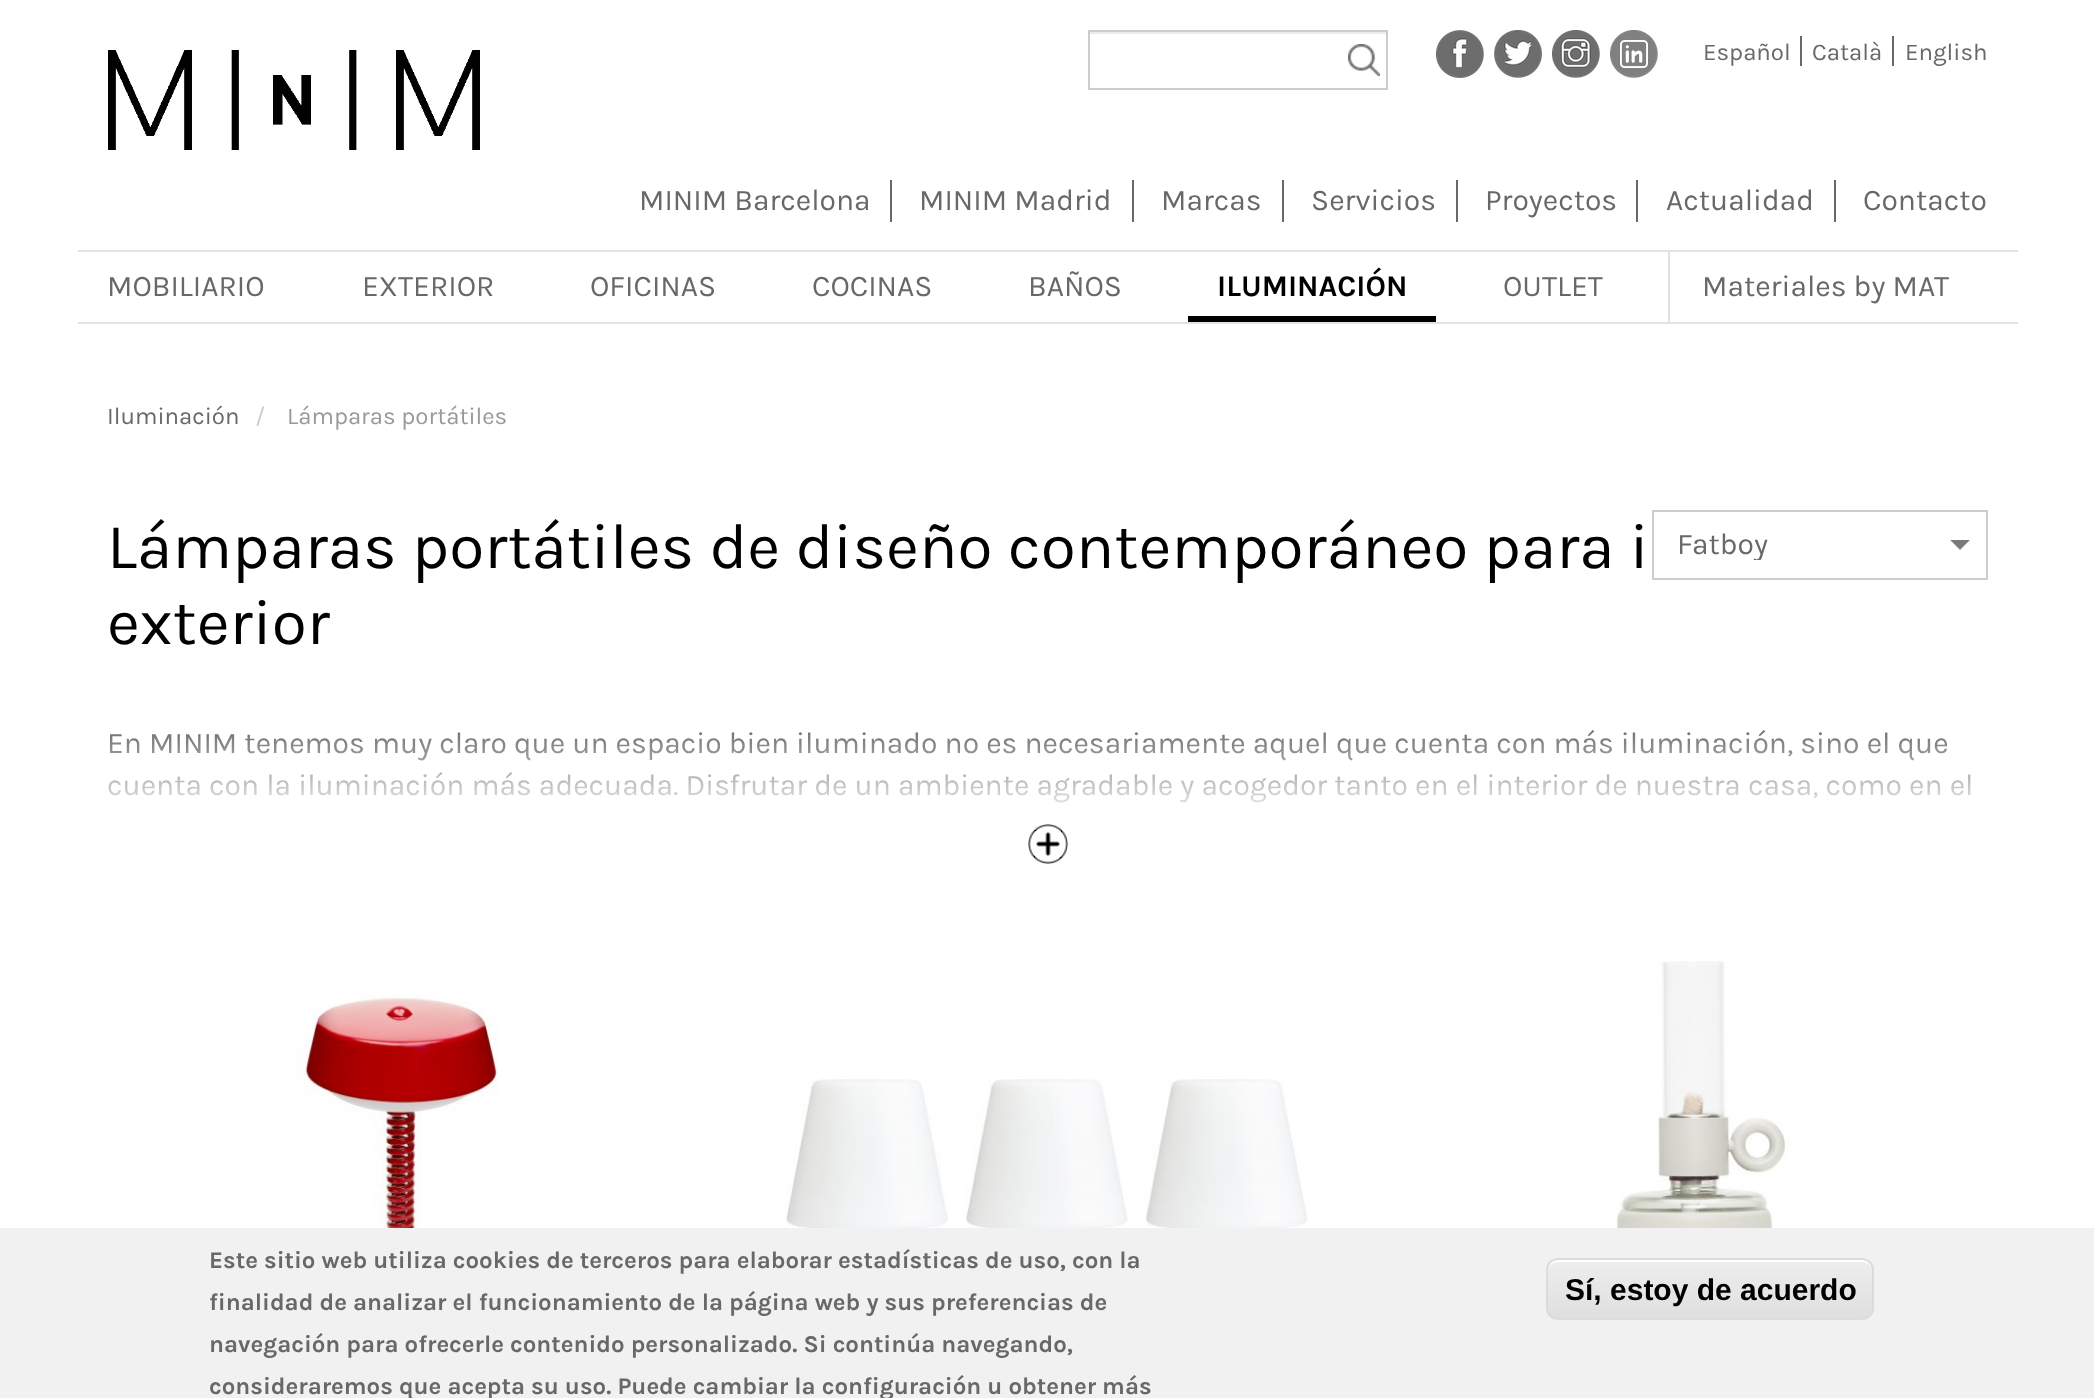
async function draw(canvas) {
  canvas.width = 2094;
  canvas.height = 1398;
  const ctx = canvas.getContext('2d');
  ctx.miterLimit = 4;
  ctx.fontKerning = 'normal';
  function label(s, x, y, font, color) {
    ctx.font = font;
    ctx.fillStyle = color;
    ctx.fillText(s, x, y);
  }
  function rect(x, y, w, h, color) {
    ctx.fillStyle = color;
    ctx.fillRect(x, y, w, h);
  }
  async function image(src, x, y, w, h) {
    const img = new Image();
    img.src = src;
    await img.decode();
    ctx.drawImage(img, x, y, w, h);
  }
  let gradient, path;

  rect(0, 0, 2094, 1398, '#fff');
  await image('assets/img1.png', 108, 50, 372, 100);
  ctx.strokeStyle = '#ccc';
  ctx.lineWidth = 2;
  ctx.strokeRect(1089, 31, 298, 58);
  await image('assets/img2.png', 1348, 44, 32, 32);
  rect(1090, 32, 296, 2, '#ececec');
  await image('assets/img3.png', 1436, 30, 48, 48);
  await image('assets/img4.png', 1494, 30, 48, 48);
  await image('assets/img5.png', 1552, 30, 48, 48);
  await image('assets/img6.png', 1610, 30, 48, 48);
  rect(1800, 36, 2, 30, '#686868');
  label('Español', 1703, 60, '24px Karla', '#686868');
  rect(1892, 36, 2, 30, '#686868');
  label('Català', 1812, 60, '24px Karla', '#686868');
  label('English', 1905, 60, '24px Karla', '#686868');
  rect(890, 180, 2, 42, '#686868');
  label('MINIM Barcelona', 639, 210, '30px Karla', '#686868');
  rect(1132, 180, 2, 42, '#686868');
  label('MINIM Madrid', 919, 210, '30px Karla', '#686868');
  rect(1282, 180, 2, 42, '#686868');
  label('Marcas', 1161, 210, '30px Karla', '#686868');
  rect(1456, 180, 2, 42, '#686868');
  label('Servicios', 1311, 210, '30px Karla', '#686868');
  rect(1636, 180, 2, 42, '#686868');
  label('Proyectos', 1485, 210, '30px Karla', '#686868');
  rect(1834, 180, 2, 42, '#686868');
  label('Actualidad', 1666, 210, '30px Karla', '#686868');
  label('Contacto', 1863, 210, '30px Karla', '#686868');
  rect(78, 250, 1940, 2, '#e2e2e2');
  rect(78, 322, 1940, 2, '#e2e2e2');
  label('MOBILIARIO', 107, 296, '30px Karla', '#686868');
  label('EXTERIOR', 362, 296, '30px Karla', '#686868');
  label('OFICINAS', 590, 296, '30px Karla', '#686868');
  label('COCINAS', 812, 296, '30px Karla', '#686868');
  label('BAÑOS', 1028, 296, '30px Karla', '#686868');
  rect(1188, 316, 248, 6, '#000');
  label('ILUMINACIÓN', 1217, 296, 'bold 30px Karla', '#000');
  label('OUTLET', 1503, 296, '30px Karla', '#686868');
  rect(1668, 252, 2, 70, '#e2e2e2');
  label('Materiales by MAT', 1702, 296, '30px Karla', '#686868');
  label('Iluminación', 107, 424, '24px Karla', '#686868');
  label('/', 255, 424, '24px Karla', '#ccc');
  label('Lámparas portátiles', 287, 424, '24px Karla', '#999');
  label('Lámparas portátiles de diseño contemporáneo para i', 107, 568, '64px Karla', '#000');
  label('exterior', 107, 644, '64px Karla', '#000');
  label('En MINIM tenemos muy claro que un espacio bien iluminado no es necesariamente aquel que cuenta con más iluminación, sino el que', 107, 753, '30px Karla', '#686868');
  label('cuenta con la iluminación más adecuada. Disfrutar de un ambiente agradable y acogedor tanto en el interior de nuestra casa, como en el', 107, 795, '30px Karla', '#686868');
  gradient = ctx.createLinearGradient(1048, 724, 1048, 824);
  gradient.addColorStop(0, '#ffffff00');
  gradient.addColorStop(1, '#fff');
  ctx.fillStyle = gradient;
  ctx.fillRect(108, 730, 1863, 73);
  await image('assets/img7.png', 1028, 824, 40, 40);
  await image('assets/img8.png', 1950, 540, 20, 10);
  ctx.strokeRect(1653, 511, 334, 68);
  ctx.save();
  ctx.beginPath();
  ctx.rect(1678, 530, 248, 30);
  ctx.clip();
  label('Fatboy', 1677, 554, '30px Karla', '#686868');
  ctx.restore();
  await image('assets/img9.png', 295, 995, 204, 233);
  await image('assets/img10.png', 757, 1079, 560, 149);
  await image('assets/img11.png', 1613, 961, 176, 267);
  rect(0, 1228, 2094, 170, '#f1f1f1');
  label('Este sitio web utiliza cookies de terceros para elaborar estadísticas de uso, con la', 209, 1268, 'bold 24px Karla', '#686868');
  label('finalidad de analizar el funcionamiento de la página web y sus preferencias de', 209, 1310, 'bold 24px Karla', '#686868');
  label('navegación para ofrecerle contenido personalizado. Si continúa navegando,', 209, 1352, 'bold 24px Karla', '#686868');
  label('consideraremos que acepta su uso. Puede cambiar la configuración u obtener más', 209, 1394, 'bold 24px Karla', '#686868');
  ctx.save();
  ctx.beginPath();
  ctx.roundRect(1546, 1258, 328, 62, 12);
  ctx.clip();
  gradient = ctx.createLinearGradient(1710, 1260, 1710, 1318);
  gradient.addColorStop(0.05, '#ededed');
  gradient.addColorStop(1, '#dfdfdf');
  ctx.fillStyle = gradient;
  ctx.fillRect(1546, 1260, 328, 58);
  ctx.restore();
  ctx.fillStyle = '#fff';
  path = new Path2D('M1558 1262H1862C1868 1262 1872 1266 1872 1272V1270C1872 1264 1868 1260 1862 1260H1558C1552 1260 1548 1264 1548 1270V1272C1548 1266 1552 1262 1558 1262Z');
  ctx.fill(path);
  ctx.beginPath();
  ctx.roundRect(1547, 1259, 326, 60, 11);
  ctx.strokeStyle = '#dcdcdc';
  ctx.stroke();
  label('Sí, estoy de acuerdo', 1565, 1300, 'bold 30px Liberation Sans', '#000');
}

draw(document.querySelector('canvas'));
